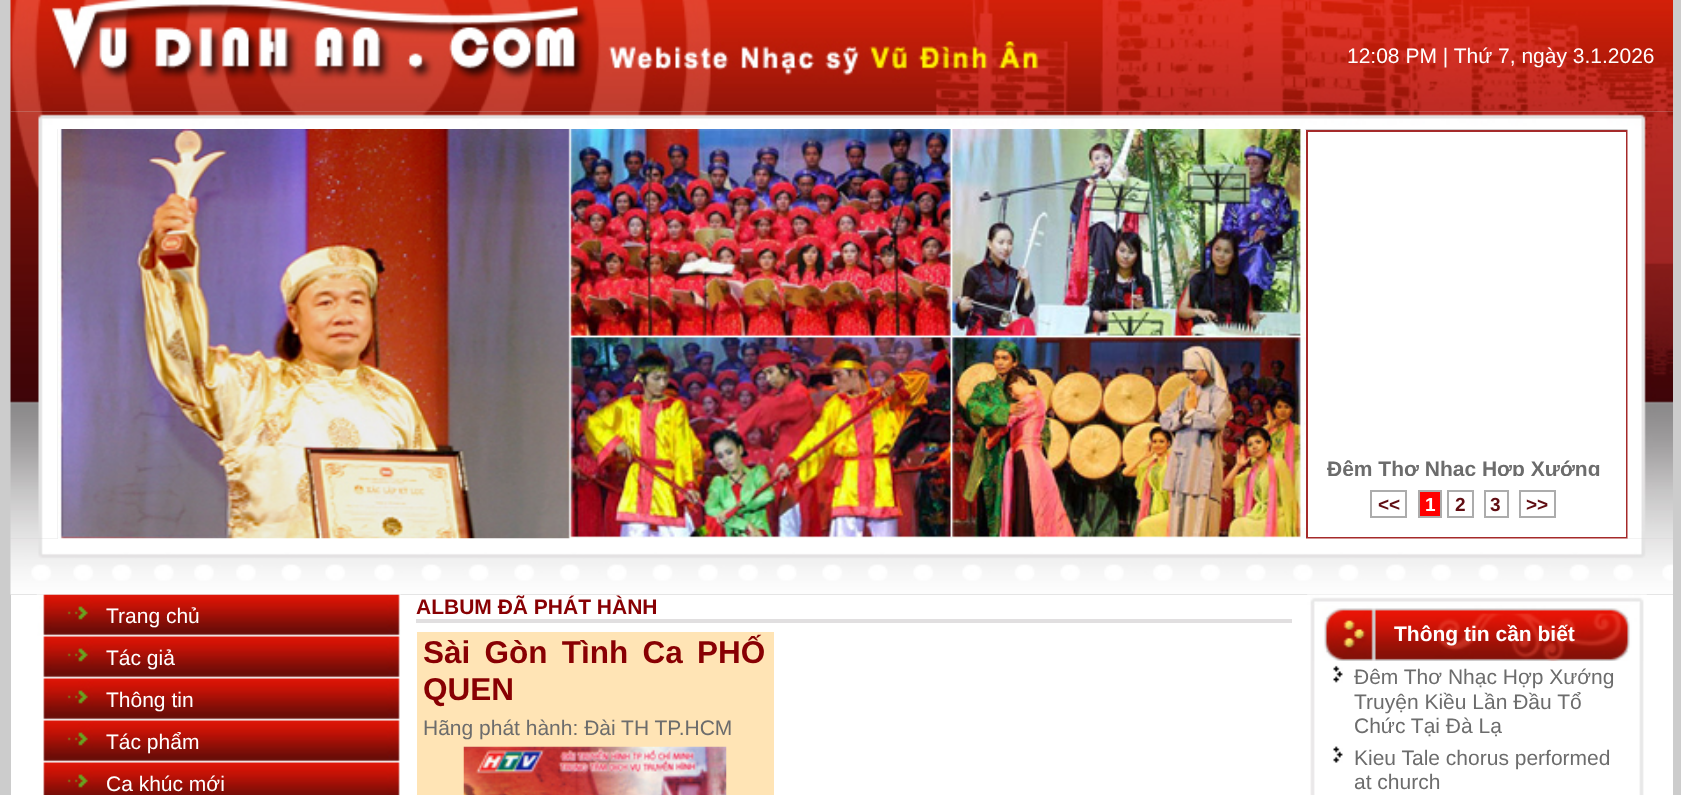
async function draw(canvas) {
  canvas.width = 1681;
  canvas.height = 795;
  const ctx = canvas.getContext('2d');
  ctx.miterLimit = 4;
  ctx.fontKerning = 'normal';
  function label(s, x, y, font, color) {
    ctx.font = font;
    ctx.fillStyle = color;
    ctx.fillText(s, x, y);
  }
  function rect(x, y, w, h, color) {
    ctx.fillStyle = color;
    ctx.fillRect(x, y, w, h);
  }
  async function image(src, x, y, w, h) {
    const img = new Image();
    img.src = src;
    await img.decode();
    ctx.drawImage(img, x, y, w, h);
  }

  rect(0, 0, 1681, 795, '#ccc');
  await image('assets/img1.png', 10, 0, 1061, 112);
  await image('assets/img2.png', 1071, 0, 602, 112);
  label('12:08 PM | Thứ 7, ngày 3.1.2026', 1347, 63, '21px Liberation Sans', '#fff');
  await image('assets/img3.png', 10, 111, 1663, 18);
  await image('assets/img4.png', 10, 129, 48, 410);
  rect(58, 130, 1248, 409, '#fff');
  await image('assets/img5.png', 58, 129, 1248, 410);
  ctx.beginPath();
  ctx.rect(1307, 131, 320, 407);
  ctx.fill();
  ctx.strokeStyle = '#a52a2a';
  ctx.lineWidth = 2;
  ctx.stroke();
  ctx.save();
  ctx.beginPath();
  ctx.rect(1327, 144, 297, 332);
  ctx.clip();
  label('Đêm Thơ Nhạc Hợp Xướng', 1327, 476, 'bold 21px Liberation Sans', '#6c6c6c');
  ctx.restore();
  ctx.strokeStyle = '#acacac';
  ctx.strokeRect(1371, 491, 35, 26);
  label('<<', 1378, 511, 'bold 19px Liberation Sans', '#600d12');
  ctx.fillStyle = '#f00';
  ctx.beginPath();
  ctx.rect(1419, 491, 22, 26);
  ctx.fill();
  ctx.stroke();
  label('1', 1425, 511, 'bold 19px Liberation Sans', '#fff');
  ctx.strokeRect(1448, 491, 25, 26);
  label('2', 1455, 511, 'bold 19px Liberation Sans', '#600d12');
  ctx.strokeRect(1485, 491, 23, 26);
  label('3', 1490, 511, 'bold 19px Liberation Sans', '#600d12');
  ctx.strokeRect(1520, 491, 35, 26);
  label('>>', 1526, 511, 'bold 19px Liberation Sans', '#600d12');
  await image('assets/img6.png', 1627, 129, 46, 410);
  rect(11, 595, 1662, 200, '#fff');
  await image('assets/img8.png', 36, 594, 365, 42);
  await image('assets/img7.png', 10, 538, 1663, 57);
  label('Trang chủ', 106, 623, '21px Liberation Sans', '#fff');
  await image('assets/img9.png', 43, 636, 357, 42);
  label('Tác giả', 106, 665, '21px Liberation Sans', '#fff');
  await image('assets/img9.png', 43, 678, 357, 42);
  label('Thông tin', 106, 707, '21px Liberation Sans', '#fff');
  await image('assets/img9.png', 43, 720, 357, 42);
  label('Tác phẩm', 106, 749, '21px Liberation Sans', '#fff');
  await image('assets/img10.png', 43, 762, 357, 33);
  label('Ca khúc mới', 106, 791, '21px Liberation Sans', '#fff');
  label('ALBUM ĐÃ PHÁT HÀNH', 416, 614, 'bold 21px Liberation Sans', '#880003');
  rect(416, 619, 876, 4, '#e1dfe0');
  rect(417, 632, 357, 163, '#ffe4b5');
  ctx.wordSpacing = '5.5px';
  label('Sài Gòn Tình Ca PHỐ', 423, 663, 'bold 31.5px Liberation Sans', '#880003');
  ctx.wordSpacing = '0px';
  label('QUEN', 423, 700, 'bold 31.5px Liberation Sans', '#880003');
  label('Hãng phát hành: Đài TH TP.HCM', 423, 735, '21px Liberation Sans', '#6c6c6c');
  await image('assets/img11.png', 463, 746, 264, 49);
  await image('assets/img12.png', 1307, 594, 340, 11);
  await image('assets/img13.png', 1310, 605, 334, 56);
  label('Thông tin cần biết', 1394, 641, 'bold 21px Liberation Sans', '#fff');
  await image('assets/img14.png', 1310, 661, 334, 134);
  await image('assets/img15.png', 1333, 665, 10, 18);
  label('Đêm Thơ Nhạc Hợp Xướng', 1354, 684, '21px Liberation Sans', '#6c6c6c');
  label('Truyện Kiều Lần Đầu Tổ', 1354, 709, '21px Liberation Sans', '#6c6c6c');
  label('Chức Tại Đà Lạ', 1354, 733, '21px Liberation Sans', '#6c6c6c');
  await image('assets/img16.png', 1333, 746, 10, 17);
  label('Kieu Tale chorus performed', 1354, 765, '21px Liberation Sans', '#6c6c6c');
  label('at church', 1354, 789, '21px Liberation Sans', '#6c6c6c');
}

draw(document.querySelector('canvas'));
